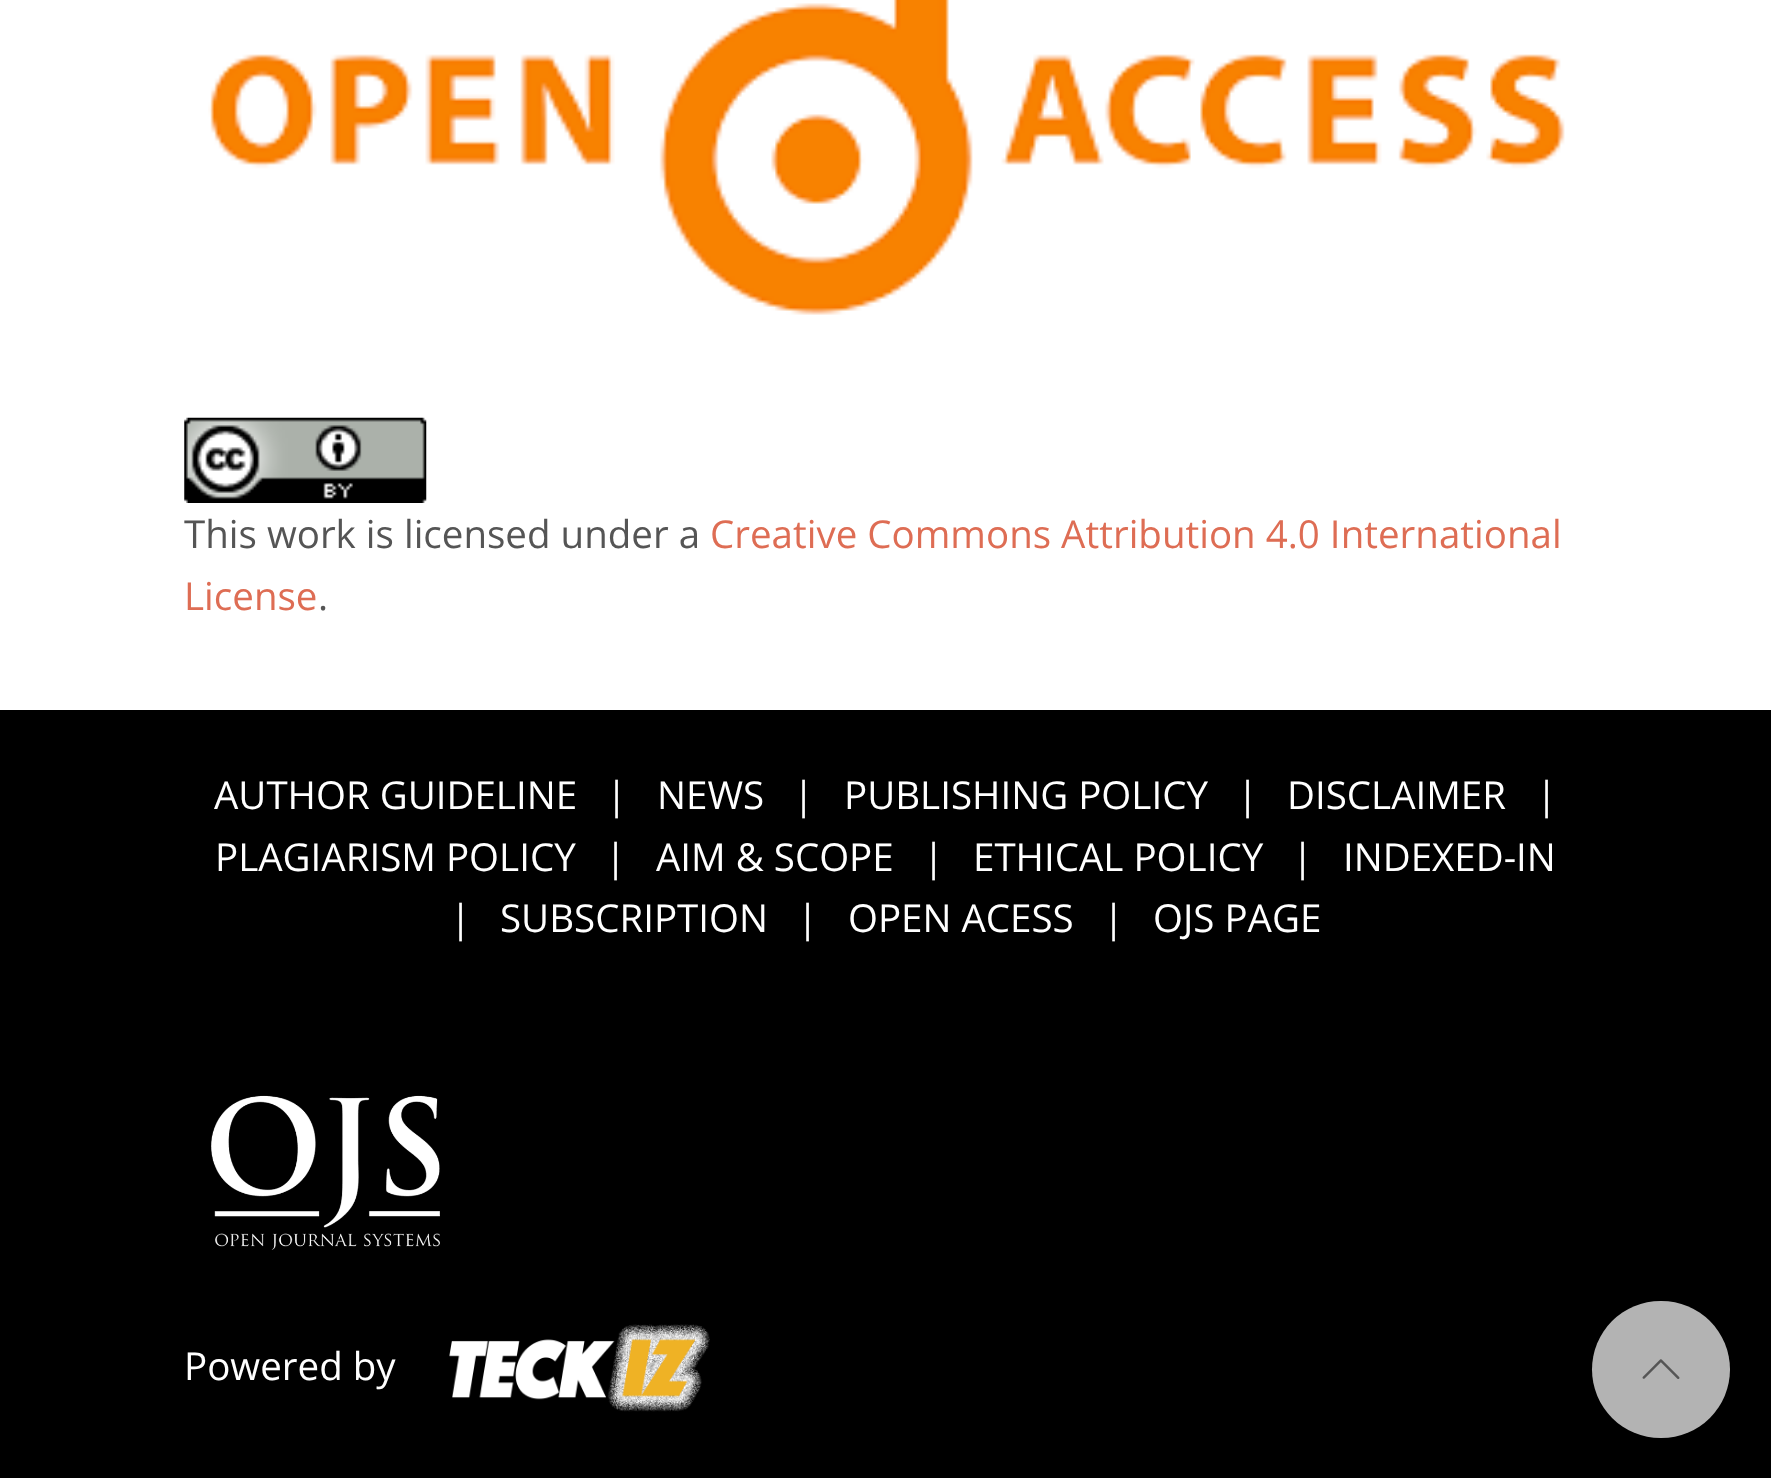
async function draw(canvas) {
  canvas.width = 1771;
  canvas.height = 1478;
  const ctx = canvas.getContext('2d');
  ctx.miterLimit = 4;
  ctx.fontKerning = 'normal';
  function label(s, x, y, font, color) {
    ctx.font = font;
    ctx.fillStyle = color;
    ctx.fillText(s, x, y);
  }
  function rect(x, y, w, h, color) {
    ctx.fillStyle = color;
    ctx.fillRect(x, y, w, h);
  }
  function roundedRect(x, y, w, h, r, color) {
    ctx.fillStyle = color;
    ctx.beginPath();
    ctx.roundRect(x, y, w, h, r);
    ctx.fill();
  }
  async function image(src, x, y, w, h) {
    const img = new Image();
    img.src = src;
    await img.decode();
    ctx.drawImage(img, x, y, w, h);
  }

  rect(0, 0, 1771, 1478, '#fff');
  await image('assets/img1.png', 208, 0, 1357, 315);
  await image('assets/img2.png', 184, 417, 243, 86);
  label('This work is licensed under a', 184, 548, '38.5px Open Sans', '#555');
  label('Creative Commons Attribution 4.0 International', 710, 548, '38.5px Open Sans', '#de6d54');
  label('License', 184, 610, '38.5px Open Sans', '#de6d54');
  label('.', 318, 610, '38.5px Open Sans', '#555');
  rect(0, 710, 1771, 768, '#000');
  label('AUTHOR GUIDELINE', 214, 809, '38.5px Open Sans', '#fff');
  label('|', 606, 809, '38.5px Open Sans', '#fff');
  label('NEWS', 657, 809, '38.5px Open Sans', '#fff');
  label('|', 793, 809, '38.5px Open Sans', '#fff');
  label('PUBLISHING POLICY', 844, 809, '38.5px Open Sans', '#fff');
  label('|', 1237, 809, '38.5px Open Sans', '#fff');
  label('DISCLAIMER', 1287, 809, '38.5px Open Sans', '#fff');
  label('|', 1536, 809, '38.5px Open Sans', '#fff');
  label('PLAGIARISM POLICY', 215, 871, '38.5px Open Sans', '#fff');
  label('|', 605, 871, '38.5px Open Sans', '#fff');
  label('AIM & SCOPE', 656, 871, '38.5px Open Sans', '#fff');
  label('|', 923, 871, '38.5px Open Sans', '#fff');
  label('ETHICAL POLICY', 973, 871, '38.5px Open Sans', '#fff');
  label('|', 1292, 871, '38.5px Open Sans', '#fff');
  label('INDEXED-IN', 1343, 871, '38.5px Open Sans', '#fff');
  label('|', 450, 932, '38.5px Open Sans', '#fff');
  label('SUBSCRIPTION', 500, 932, '38.5px Open Sans', '#fff');
  label('|', 797, 932, '38.5px Open Sans', '#fff');
  label('OPEN ACESS', 848, 932, '38.5px Open Sans', '#fff');
  label('|', 1103, 932, '38.5px Open Sans', '#fff');
  label('OJS PAGE', 1153, 932, '38.5px Open Sans', '#fff');
  await image('assets/img3.png', 211, 1095, 229, 155);
  label('Powered by', 184, 1380, '38.5px Open Sans', '#fff');
  await image('assets/img4.png', 449, 1324, 261, 88);
  roundedRect(1592, 1301, 138, 137, 68.5, '#b3b3b3');
  await image('assets/img5.png', 1642, 1359, 38, 20);
}

draw(document.querySelector('canvas'));
